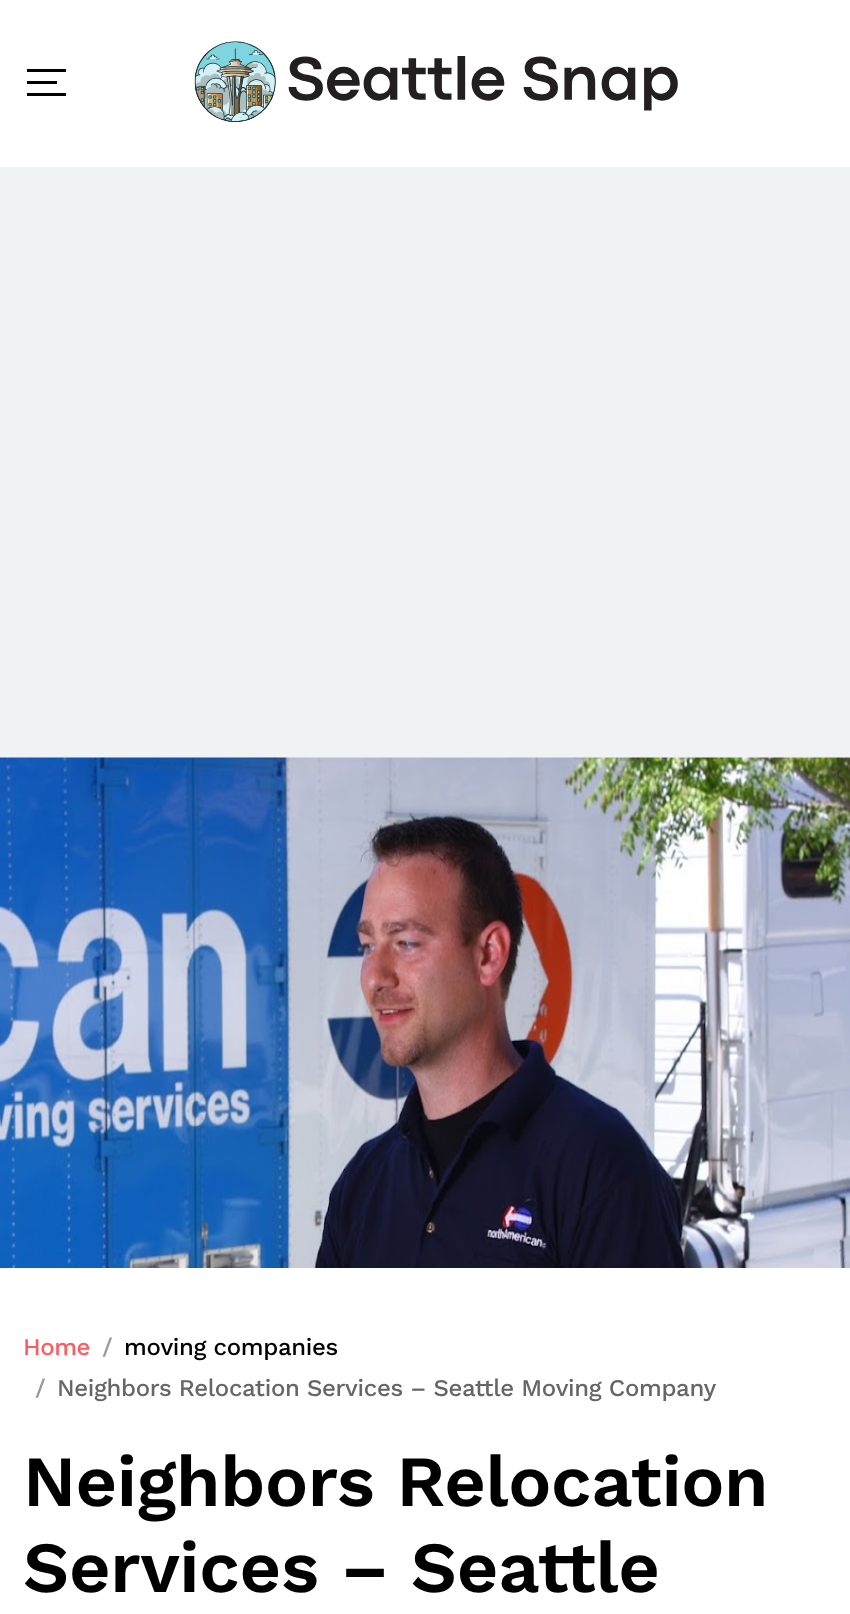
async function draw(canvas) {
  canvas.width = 850;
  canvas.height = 1614;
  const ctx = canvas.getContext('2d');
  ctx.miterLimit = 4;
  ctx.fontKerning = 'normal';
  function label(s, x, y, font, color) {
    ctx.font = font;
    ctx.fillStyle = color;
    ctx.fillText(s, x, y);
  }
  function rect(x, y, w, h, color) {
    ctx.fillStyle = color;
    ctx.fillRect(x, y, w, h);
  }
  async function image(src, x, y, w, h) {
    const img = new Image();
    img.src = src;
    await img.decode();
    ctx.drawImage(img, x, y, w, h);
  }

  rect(0, 0, 850, 1614, '#f0f2f3');
  rect(0, 0, 850, 167, '#fff');
  rect(27, 81, 30, 3, '#000');
  rect(27, 69, 39, 3, '#000');
  rect(27, 93, 39, 3, '#000');
  await image('assets/img1.png', 194, 41, 484, 81);
  await image('assets/img2.png', 0, 757, 850, 511);
  rect(0, 1268, 850, 346, '#fff');
  ctx.letterSpacing = '-0.35px';
  label('Home', 23, 1355, '500 24px Work Sans', '#ff5a5f');
  label('/', 102, 1355, '500 24px Work Sans', '#999');
  label('moving companies', 124, 1355, '500 24px Work Sans', '#000');
  label('/', 35, 1396, '500 24px Work Sans', '#999');
  label('Neighbors Relocation Services – Seattle Moving Company', 57, 1396, '500 24px Work Sans', '#666');
  label('Neighbors Relocation', 23, 1506, '600 72px Work Sans', '#000');
  label('Services – Seattle', 23, 1592, '600 72px Work Sans', '#000');
}

draw(document.querySelector('canvas'));
